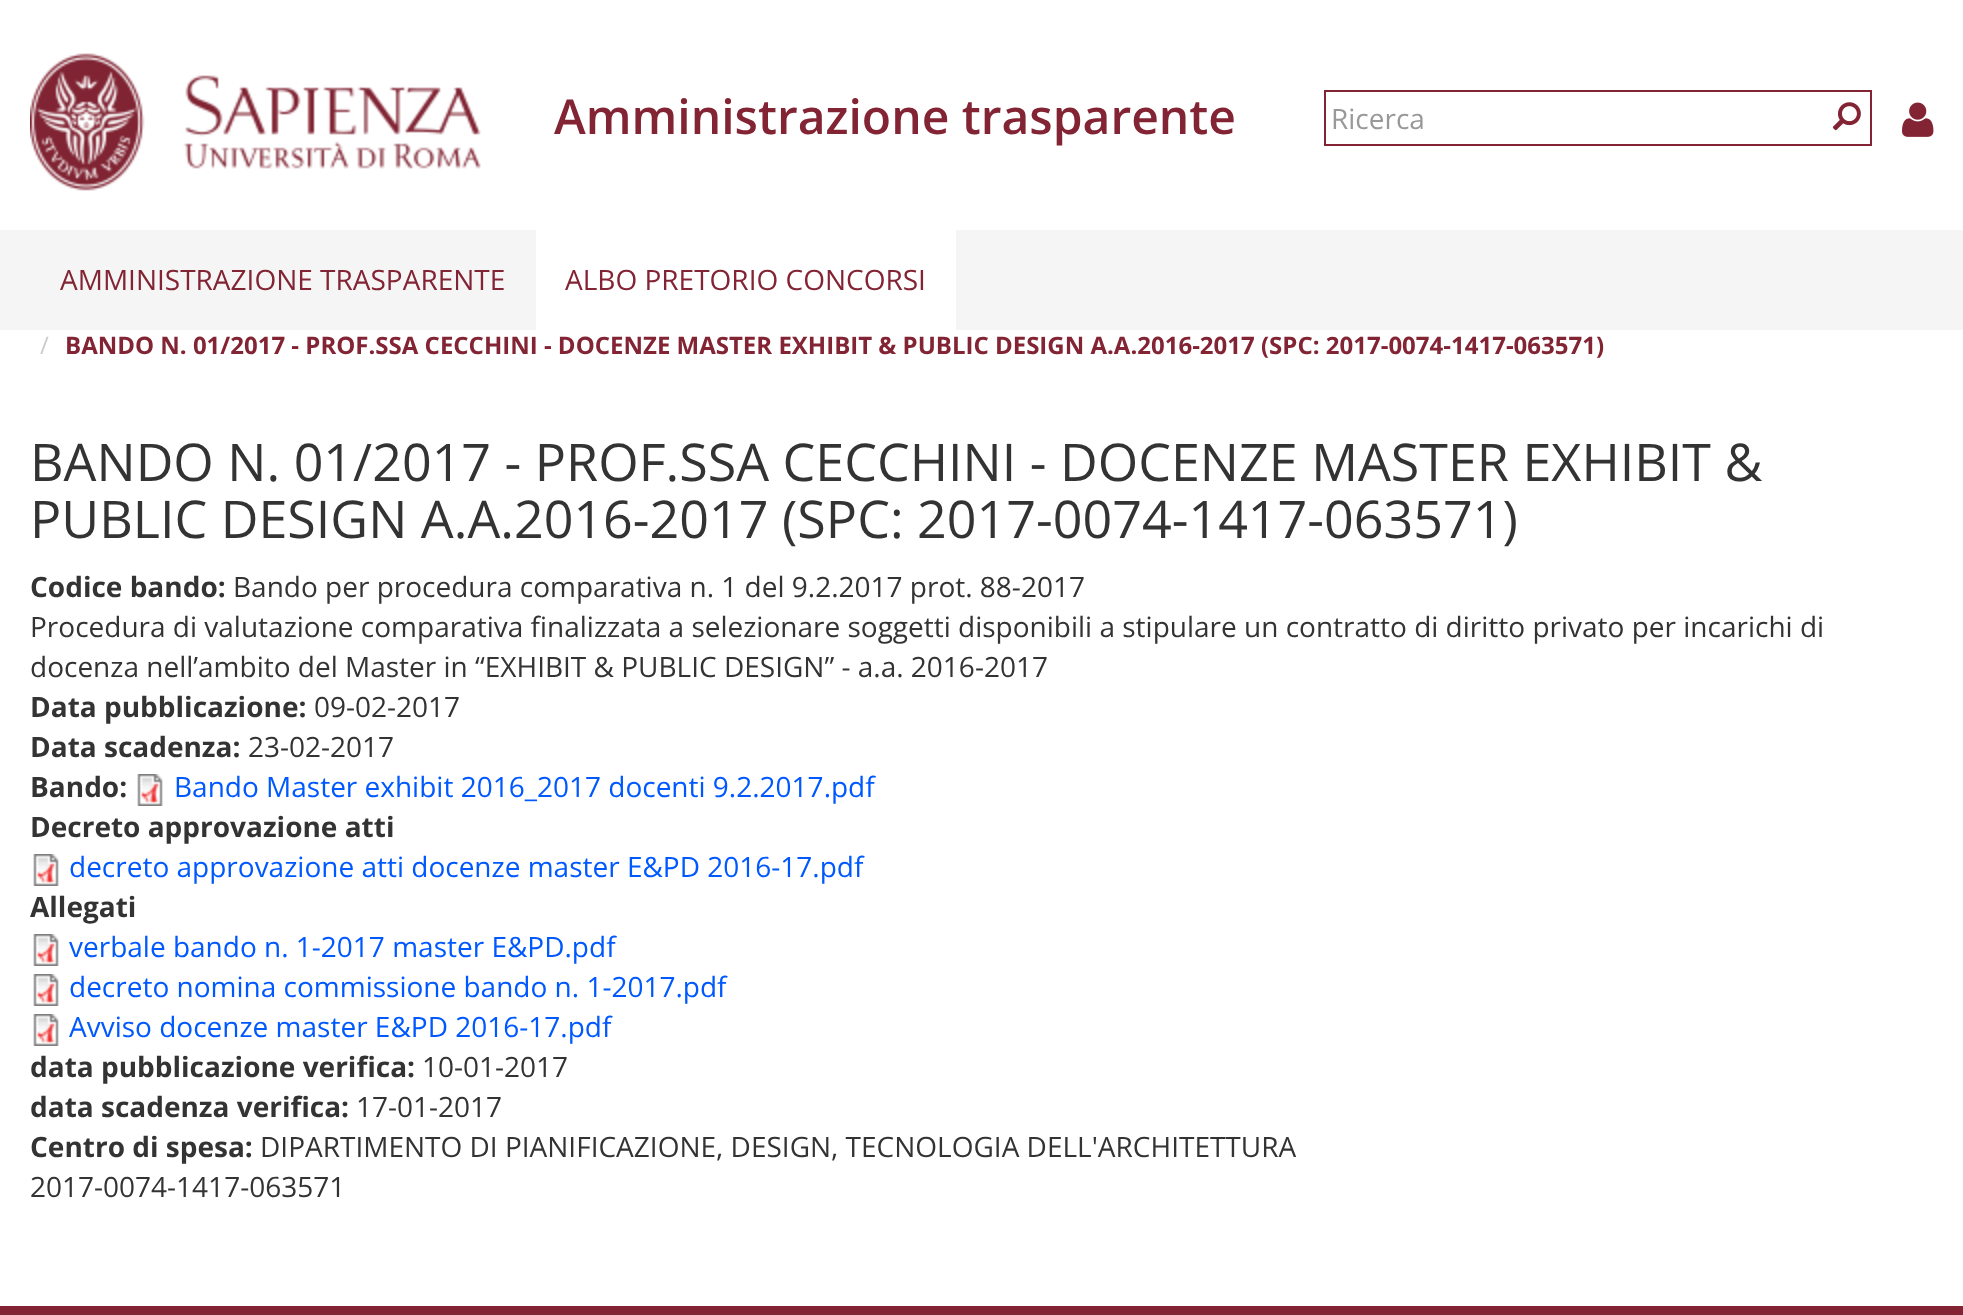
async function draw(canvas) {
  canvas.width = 1963;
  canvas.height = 1315;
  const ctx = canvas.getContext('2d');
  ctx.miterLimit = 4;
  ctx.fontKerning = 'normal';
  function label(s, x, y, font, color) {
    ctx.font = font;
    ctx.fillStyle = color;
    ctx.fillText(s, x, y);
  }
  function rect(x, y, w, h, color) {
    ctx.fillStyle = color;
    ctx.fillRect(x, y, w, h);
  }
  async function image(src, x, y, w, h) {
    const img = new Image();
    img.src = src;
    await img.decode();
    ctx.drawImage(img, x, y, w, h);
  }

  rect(0, 0, 1963, 1315, '#fff');
  await image('assets/img1.png', 30, 53, 451, 138);
  label('Amministrazione trasparente', 554, 134, '600 48px Open Sans', '#822433');
  rect(1324, 90, 548, 2, '#822433');
  rect(1324, 144, 500, 2, '#822433');
  rect(1324, 90, 2, 56, '#822433');
  label('Ricerca', 1331, 129, '28px Open Sans', '#999');
  rect(1870, 90, 2, 56, '#822433');
  rect(1822, 144, 50, 2, '#822433');
  await image('assets/img2.png', 1832, 102, 29, 29);
  await image('assets/img3.png', 1902, 102, 32, 35);
  rect(0, 230, 1963, 100, '#f5f5f5');
  label('AMMINISTRAZIONE TRASPARENTE', 60, 290, '28px Open Sans', '#822433');
  rect(536, 230, 420, 100, '#fff');
  label('ALBO PRETORIO CONCORSI', 565, 290, '28px Open Sans', '#822433');
  label('/', 40, 354, '24px Open Sans', '#ccc');
  label('BANDO N. 01/2017 - PROF.SSA CECCHINI - DOCENZE MASTER EXHIBIT & PUBLIC DESIGN A.A.2016-2017 (SPC: 2017-0074-1417-063571)', 65, 354, 'bold 24px Open Sans', '#822433');
  label('BANDO N. 01/2017 - PROF.SSA CECCHINI - DOCENZE MASTER EXHIBIT &', 30, 481, '52px Open Sans', '#333');
  label('PUBLIC DESIGN A.A.2016-2017 (SPC: 2017-0074-1417-063571)', 30, 538, '52px Open Sans', '#333');
  label('Codice bando:', 30, 597, 'bold 28px Open Sans', '#333');
  label('Bando per procedura comparativa n. 1 del 9.2.2017 prot. 88-2017', 233, 597, '28px Open Sans', '#333');
  label('Procedura di valutazione comparativa finalizzata a selezionare soggetti disponibili a stipulare un contratto di diritto privato per incarichi di', 30, 637, '28px Open Sans', '#333');
  label('docenza nell’ambito del Master in “EXHIBIT & PUBLIC DESIGN” - a.a. 2016-2017', 30, 677, '28px Open Sans', '#333');
  label('Data pubblicazione:', 30, 717, 'bold 28px Open Sans', '#333');
  label('09-02-2017', 314, 717, '28px Open Sans', '#333');
  label('Data scadenza:', 30, 757, 'bold 28px Open Sans', '#333');
  label('23-02-2017', 248, 757, '28px Open Sans', '#333');
  label('Bando:', 30, 797, 'bold 28px Open Sans', '#333');
  await image('assets/img4.png', 137, 774, 26, 32);
  label('Bando Master exhibit 2016_2017 docenti 9.2.2017.pdf', 174, 797, '28px Open Sans', '#0058ff');
  label('Decreto approvazione atti', 30, 837, 'bold 28px Open Sans', '#333');
  await image('assets/img4.png', 33, 854, 26, 32);
  label('decreto approvazione atti docenze master E&PD 2016-17.pdf', 69, 877, '28px Open Sans', '#0058ff');
  label('Allegati', 30, 917, 'bold 28px Open Sans', '#333');
  await image('assets/img4.png', 33, 934, 26, 32);
  label('verbale bando n. 1-2017 master E&PD.pdf', 69, 957, '28px Open Sans', '#0058ff');
  await image('assets/img4.png', 33, 974, 26, 32);
  label('decreto nomina commissione bando n. 1-2017.pdf', 69, 997, '28px Open Sans', '#0058ff');
  await image('assets/img4.png', 33, 1014, 26, 32);
  label('Avviso docenze master E&PD 2016-17.pdf', 69, 1037, '28px Open Sans', '#0058ff');
  label('data pubblicazione verifica:', 30, 1077, 'bold 28px Open Sans', '#333');
  label('10-01-2017', 422, 1077, '28px Open Sans', '#333');
  label('data scadenza verifica:', 30, 1117, 'bold 28px Open Sans', '#333');
  label('17-01-2017', 356, 1117, '28px Open Sans', '#333');
  label('Centro di spesa:', 30, 1157, 'bold 28px Open Sans', '#333');
  label('DIPARTIMENTO DI PIANIFICAZIONE, DESIGN, TECNOLOGIA DELL\'ARCHITETTURA', 260, 1157, '28px Open Sans', '#333');
  label('2017-0074-1417-063571', 30, 1197, '28px Open Sans', '#333');
  rect(0, 1306, 1963, 9, '#822433');
}

draw(document.querySelector('canvas'));
